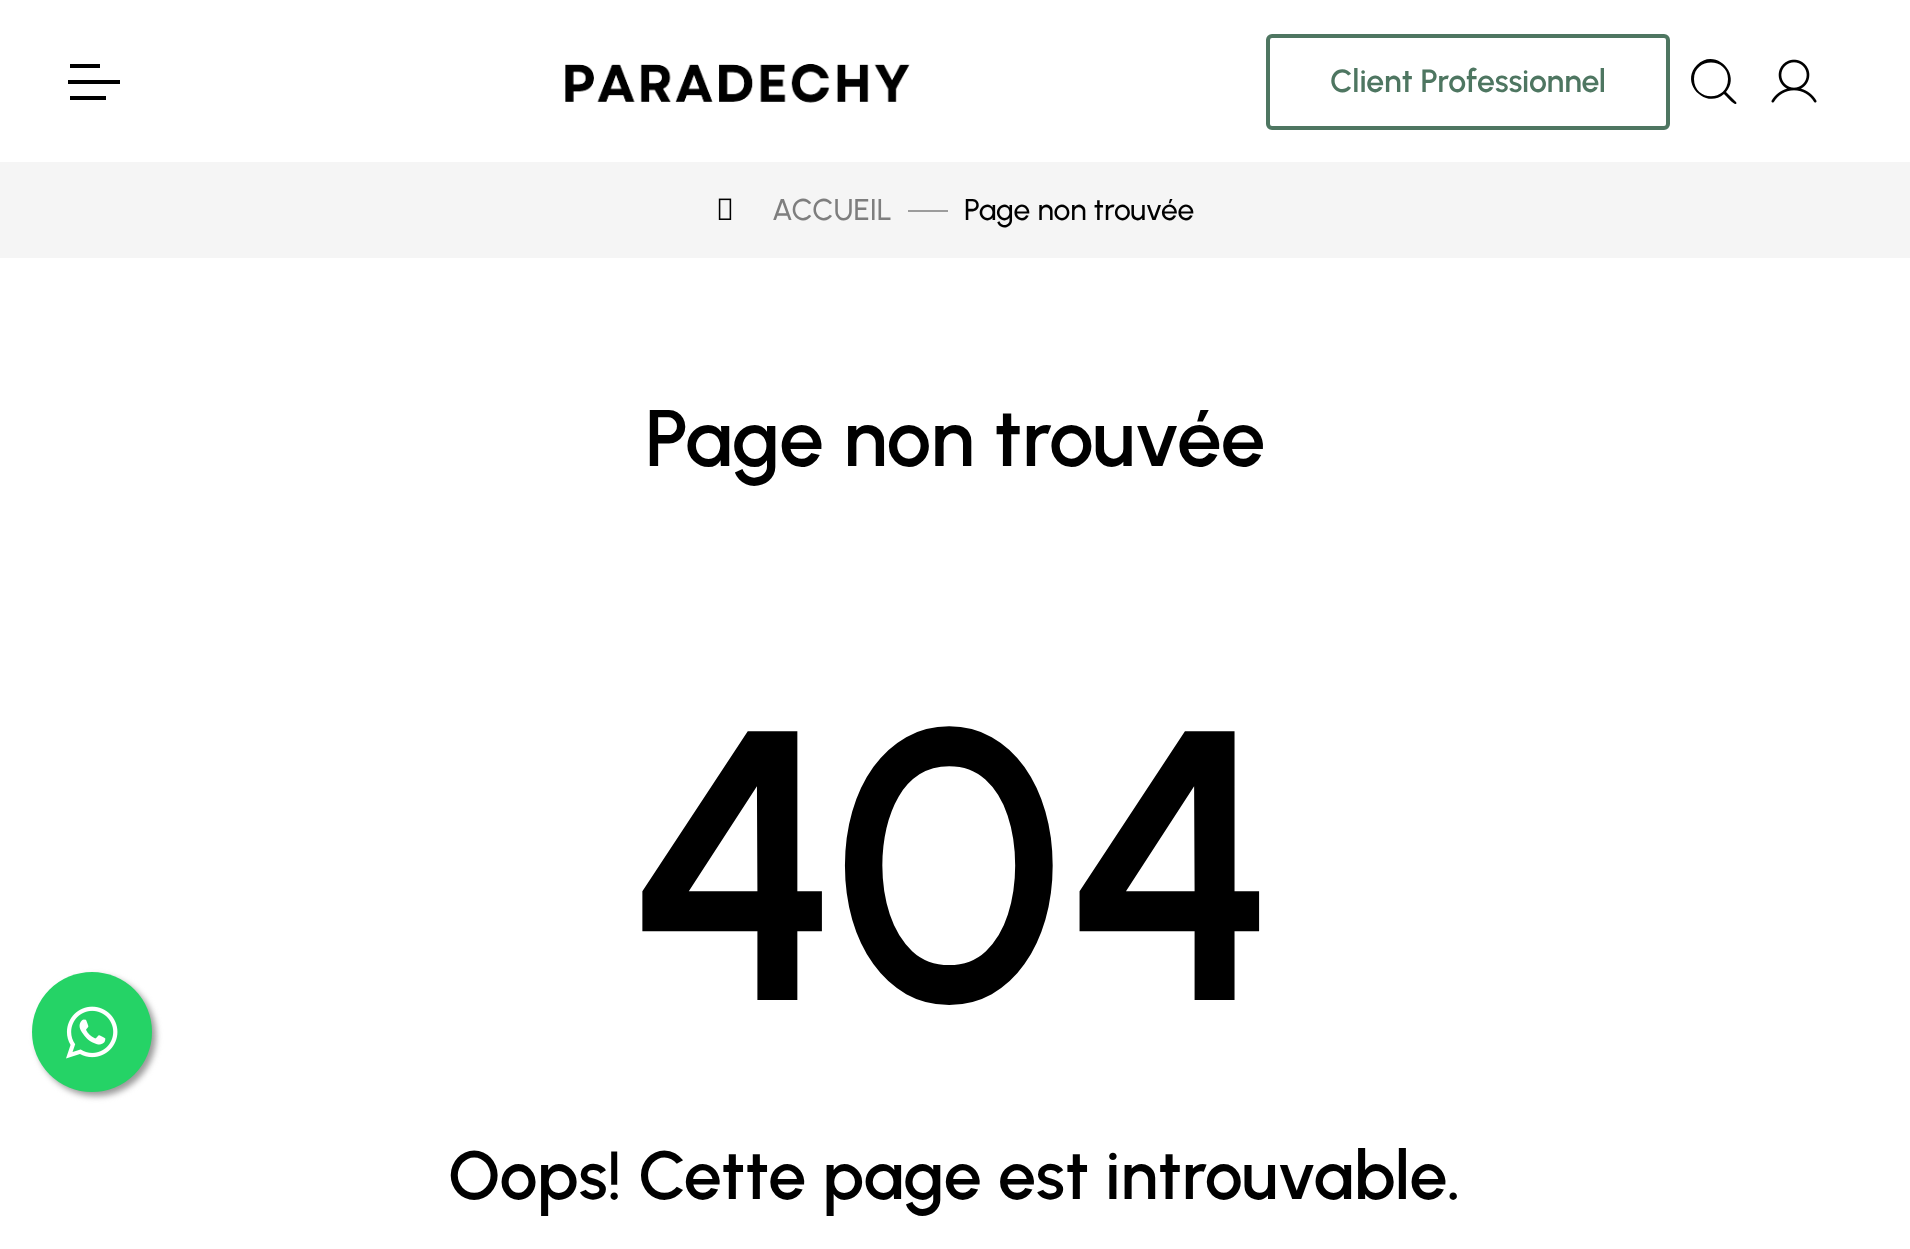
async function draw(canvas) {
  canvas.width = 1910;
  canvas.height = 1249;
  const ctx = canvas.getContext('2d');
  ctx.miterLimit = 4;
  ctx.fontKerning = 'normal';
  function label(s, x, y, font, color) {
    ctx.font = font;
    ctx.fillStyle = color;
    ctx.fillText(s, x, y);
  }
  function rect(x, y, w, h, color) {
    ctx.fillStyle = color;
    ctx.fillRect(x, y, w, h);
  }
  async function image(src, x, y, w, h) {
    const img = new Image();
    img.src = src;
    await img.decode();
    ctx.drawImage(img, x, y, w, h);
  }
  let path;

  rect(0, 0, 1910, 1249, '#fff');
  rect(68, 80, 52, 4, '#000');
  rect(70, 64, 30, 4, '#000');
  rect(70, 96, 36, 4, '#000');
  await image('assets/img1.png', 565, 63, 345, 40);
  ctx.beginPath();
  ctx.roundRect(1268, 36, 400, 92, 4);
  ctx.strokeStyle = '#4e7661';
  ctx.lineWidth = 4;
  ctx.stroke();
  label('Client Professionnel', 1330, 92, '600 32px Urbanist', '#4e7661');
  ctx.fillStyle = '#000';
  path = new Path2D('M1736 102L1726 92C1742 74 1715 47 1697 65C1679 83 1706 110 1724 94C1726 96 1734 105 1736 104C1736 104 1737 103 1736 102ZM1694 79C1694 57 1728 57 1728 79C1728 102 1694 102 1694 79Z');
  ctx.fill(path);
  await image('assets/img2.png', 1771, 59, 46, 44);
  ctx.fillStyle = '#999';
  ctx.filter = 'blur(3px)';
  ctx.beginPath();
  ctx.roundRect(36, 976, 120, 120, 60);
  ctx.fill();
  ctx.filter = 'none';
  ctx.fillStyle = '#25d366';
  ctx.beginPath();
  ctx.arc(92, 1032, 60, 0, 2 * Math.PI);
  ctx.fill();
  await image('assets/img3.png', 66, 1006, 52, 53);
  rect(0, 162, 1910, 96, '#f5f5f5');
  await image('assets/img4.png', 718, 198, 14, 22);
  label('ACCUEIL', 772, 220, '500 30px Urbanist', '#7e7e7e');
  rect(908, 210, 40, 2, '#9c9c9c');
  label('Page non trouvée', 964, 220, '500 30px Urbanist', '#000');
  label('Page non trouvée', 645, 466, '600 80px Urbanist', '#000');
  label('404', 627, 1000, '600 384px Urbanist', '#000');
  label('Oops! Cette page est introuvable.', 448, 1199, '600 68px Urbanist', '#000');
}

draw(document.querySelector('canvas'));
